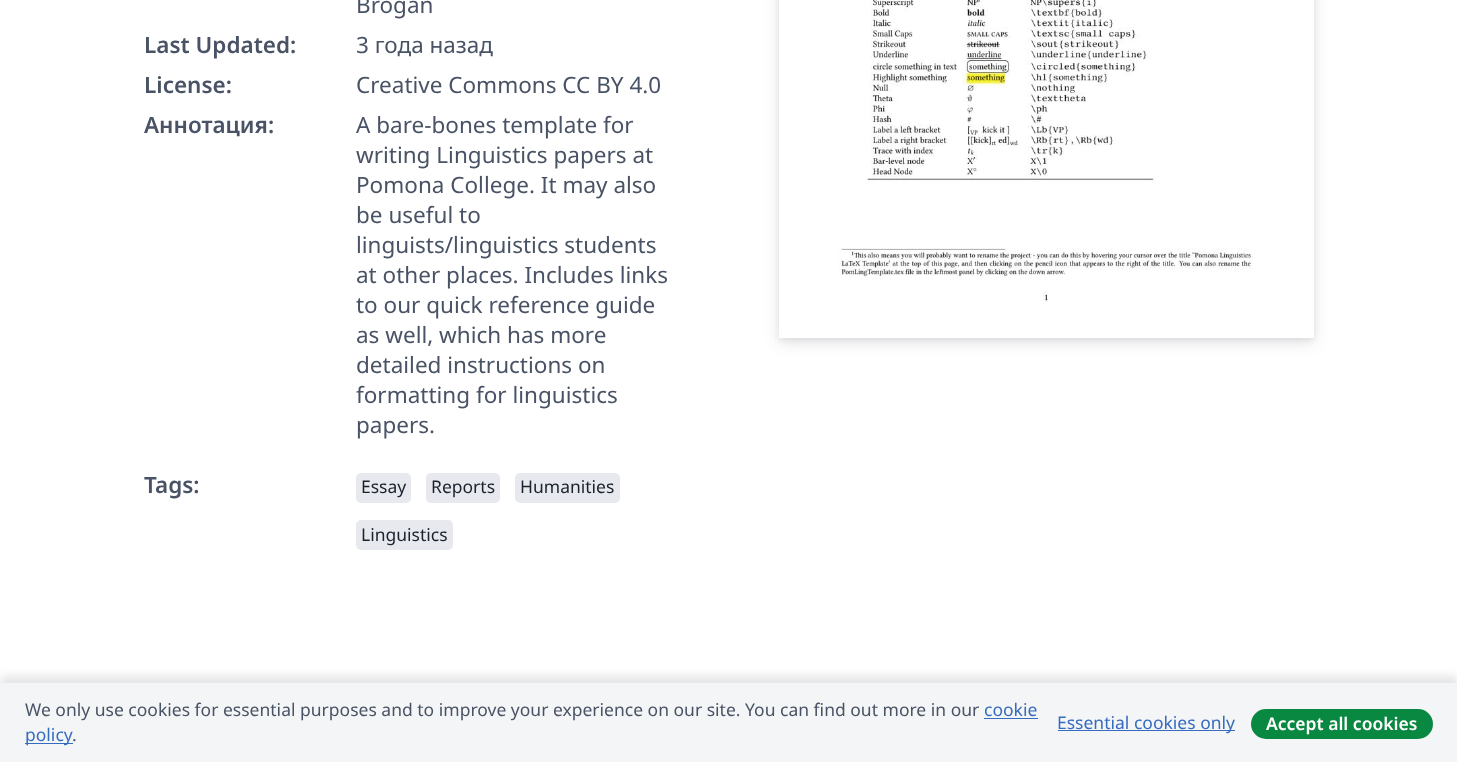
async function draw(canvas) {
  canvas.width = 1457;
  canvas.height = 762;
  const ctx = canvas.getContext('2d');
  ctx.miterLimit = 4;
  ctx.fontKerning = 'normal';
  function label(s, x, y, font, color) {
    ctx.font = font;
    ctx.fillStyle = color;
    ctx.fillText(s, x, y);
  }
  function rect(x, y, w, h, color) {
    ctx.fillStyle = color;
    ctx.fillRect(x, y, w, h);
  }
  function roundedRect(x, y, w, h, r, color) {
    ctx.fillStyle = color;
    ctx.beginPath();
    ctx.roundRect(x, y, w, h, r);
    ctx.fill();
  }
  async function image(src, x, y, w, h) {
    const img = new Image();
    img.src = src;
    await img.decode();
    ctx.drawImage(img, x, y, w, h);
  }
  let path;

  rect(0, 0, 1457, 762, '#fff');
  label('Brogan', 356, 13, '22.5px Noto Sans', '#495365');
  label('Last Updated:', 144, 53, '600 22.5px Noto Sans', '#495365');
  label('3 года назад', 356, 53, '22.5px Noto Sans', '#495365');
  label('License:', 144, 93, '600 22.5px Noto Sans', '#495365');
  label('Creative Commons CC BY 4.0', 356, 93, '22.5px Noto Sans', '#495365');
  label('Аннотация:', 144, 133, '600 22.5px Noto Sans', '#495365');
  label('A bare-bones template for', 356, 133, '22.5px Noto Sans', '#495365');
  label('writing Linguistics papers at', 356, 163, '22.5px Noto Sans', '#495365');
  label('Pomona College. It may also', 356, 193, '22.5px Noto Sans', '#495365');
  label('be useful to', 356, 223, '22.5px Noto Sans', '#495365');
  label('linguists/linguistics students', 356, 253, '22.5px Noto Sans', '#495365');
  label('at other places. Includes links', 356, 283, '22.5px Noto Sans', '#495365');
  label('to our quick reference guide', 356, 313, '22.5px Noto Sans', '#495365');
  label('as well, which has more', 356, 343, '22.5px Noto Sans', '#495365');
  label('detailed instructions on', 356, 373, '22.5px Noto Sans', '#495365');
  label('formatting for linguistics', 356, 403, '22.5px Noto Sans', '#495365');
  label('papers.', 356, 433, '22.5px Noto Sans', '#495365');
  label('Tags:', 144, 493, '600 22.5px Noto Sans', '#495365');
  roundedRect(356, 473, 55, 30, 5, '#e7e9ee');
  label('Essay', 361, 493, '17.5px Noto Sans', '#1b222c');
  roundedRect(426, 473, 74, 30, 5, '#e7e9ee');
  label('Reports', 431, 493, '17.5px Noto Sans', '#1b222c');
  roundedRect(515, 473, 105, 30, 5, '#e7e9ee');
  label('Humanities', 520, 493, '17.5px Noto Sans', '#1b222c');
  roundedRect(356, 520, 97, 30, 5, '#e7e9ee');
  label('Linguistics', 361, 541, '17.5px Noto Sans', '#1b222c');
  ctx.save();
  path = new Path2D('M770 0H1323V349H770ZM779-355H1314V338H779Z');
  ctx.clip(path, 'evenodd');
  ctx.fillStyle = '#1e253014';
  ctx.filter = 'blur(2.5px)';
  ctx.beginPath();
  ctx.rect(779, -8, 535, 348);
  ctx.fill();
  ctx.filter = 'none';
  ctx.restore();
  ctx.save();
  path = new Path2D('M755 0H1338V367H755ZM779-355H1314V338H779Z');
  ctx.clip(path, 'evenodd');
  ctx.fillStyle = '#1e25301f';
  ctx.filter = 'blur(7.5px)';
  ctx.beginPath();
  ctx.rect(779, -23, 535, 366);
  ctx.fill();
  ctx.filter = 'none';
  ctx.restore();
  await image('assets/img1.png', 838, 0, 476, 336);
  ctx.fillStyle = '#0000001a';
  ctx.filter = 'blur(5px)';
  ctx.beginPath();
  ctx.rect(0, 676, 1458, 80);
  ctx.fill();
  ctx.filter = 'none';
  rect(0, 683, 1457, 79, '#f4f5f6');
  label('We only use cookies for essential purposes and to improve your experience on our site. You can find out more in our', 25, 716, '17.5px Noto Sans', '#495365');
  label('cookie', 984, 716, '17.5px Noto Sans', '#366cbf');
  rect(984, 718, 54, 1, '#366cbf');
  rect(25, 743, 48, 1, '#366cbf');
  label('policy', 25, 741, '17.5px Noto Sans', '#366cbf');
  label('.', 72, 741, '17.5px Noto Sans', '#495365');
  rect(1058, 730, 177, 1, '#366cbf');
  label('Essential cookies only', 1057, 729, '17.5px Noto Sans', '#366cbf');
  roundedRect(1251, 709, 182, 30, 15, '#098842');
  label('Accept all cookies', 1266, 730, '600 17.5px Noto Sans', '#fff');
}

draw(document.querySelector('canvas'));
